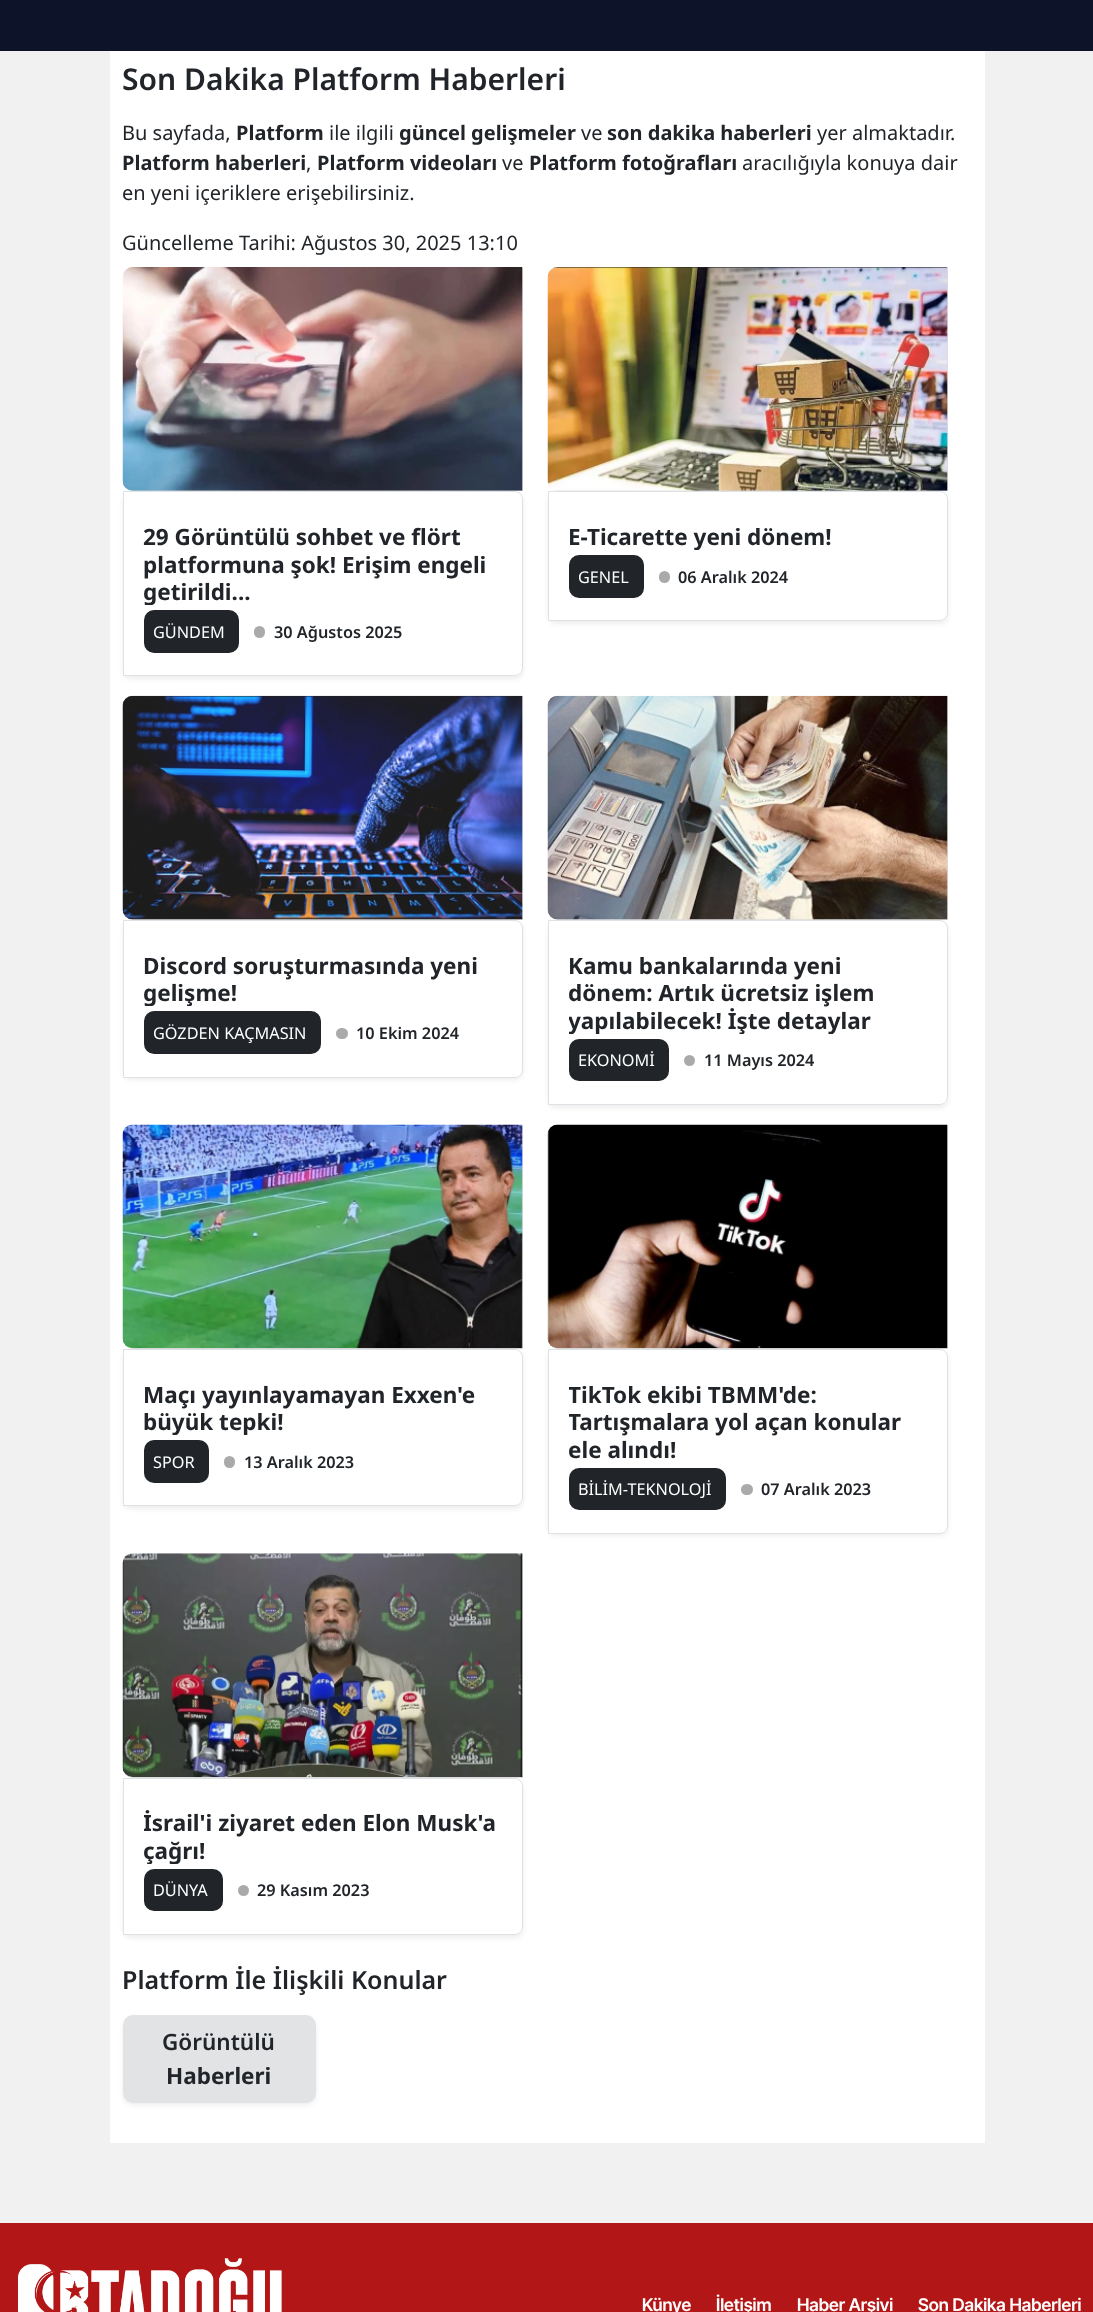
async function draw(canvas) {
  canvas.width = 1093;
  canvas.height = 2312;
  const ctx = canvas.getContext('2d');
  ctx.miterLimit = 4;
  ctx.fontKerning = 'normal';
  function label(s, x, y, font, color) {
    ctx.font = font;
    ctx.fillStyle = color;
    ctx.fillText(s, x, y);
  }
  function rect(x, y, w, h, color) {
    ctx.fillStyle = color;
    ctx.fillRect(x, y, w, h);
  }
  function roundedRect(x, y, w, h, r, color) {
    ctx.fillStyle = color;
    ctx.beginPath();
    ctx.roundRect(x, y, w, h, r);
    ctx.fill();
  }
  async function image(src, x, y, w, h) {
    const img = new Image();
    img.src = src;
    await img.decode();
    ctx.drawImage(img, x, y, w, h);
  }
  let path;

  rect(0, 0, 1093, 2312, '#f1f1f1');
  rect(0, 0, 1093, 51, '#0d1328');
  rect(110, 51, 875, 2092, '#fff');
  label('Son Dakika Platform Haberleri', 122, 90, '600 30px Noto Sans', '#212529');
  label('Bu sayfada,', 122, 140, '20px Noto Sans', '#212529');
  label('Platform', 236, 140, 'bold 20px Noto Sans', '#212529');
  label('ile ilgili', 329, 140, '20px Noto Sans', '#212529');
  label('güncel gelişmeler', 399, 140, 'bold 20px Noto Sans', '#212529');
  label('ve', 581, 140, '20px Noto Sans', '#212529');
  label('son dakika haberleri', 607, 140, 'bold 20px Noto Sans', '#212529');
  label('yer almaktadır.', 817, 140, '20px Noto Sans', '#212529');
  label('Platform haberleri', 122, 170, 'bold 20px Noto Sans', '#212529');
  label(',', 306, 170, '20px Noto Sans', '#212529');
  label('Platform videoları', 317, 170, 'bold 20px Noto Sans', '#212529');
  label('ve', 502, 170, '20px Noto Sans', '#212529');
  label('Platform fotoğrafları', 529, 170, 'bold 20px Noto Sans', '#212529');
  label('aracılığıyla konuya dair', 742, 170, '20px Noto Sans', '#212529');
  label('en yeni içeriklere erişebilirsiniz.', 122, 200, '20px Noto Sans', '#212529');
  label('Güncelleme Tarihi: Ağustos 30, 2025 13:10', 122, 250, '20px Noto Sans', '#212529');
  ctx.save();
  path = new Path2D('M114 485H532V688H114ZM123 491H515C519.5 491 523 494.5 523 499V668C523 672.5 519.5 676 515 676H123Z');
  ctx.clip(path, 'evenodd');
  ctx.fillStyle = '#00000012';
  ctx.filter = 'blur(2.5px)';
  ctx.beginPath();
  ctx.roundRect(123, 494, 400, 185, 8);
  ctx.fill();
  ctx.filter = 'none';
  ctx.restore();
  ctx.fillStyle = '#ddd';
  ctx.beginPath();
  ctx.roundRect(123, 268, 400, 223, [10, 0, 0, 10]);
  ctx.fill();
  await image('assets/img1.png', 122, 267, 401, 224);
  ctx.beginPath();
  ctx.roundRect(123.5, 491.5, 399, 184, [0, 7.5, 7.5, 0]);
  ctx.strokeStyle = '#dee2e6';
  ctx.stroke();
  label('29 Görüntülü sohbet ve flört', 143, 545, 'bold 22.5px Noto Sans', '#212529');
  label('platformuna şok! Erişim engeli', 143, 573, 'bold 22.5px Noto Sans', '#212529');
  ctx.save();
  ctx.beginPath();
  ctx.rect(144, 523, 357, 82);
  ctx.clip();
  label('getirildi...', 143, 600, 'bold 22.5px Noto Sans', '#212529');
  ctx.restore();
  roundedRect(144, 610, 95, 43, 10, '#212529');
  label('GÜNDEM', 153, 638, '16.25px Noto Sans', '#fff');
  roundedRect(254, 626, 11, 12, 5.5, '#aaa');
  label('30 Ağustos 2025', 274, 638, '600 16.25px Noto Sans', '#212529');
  ctx.save();
  path = new Path2D('M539 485H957V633H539ZM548 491H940C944.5 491 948 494.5 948 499V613C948 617.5 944.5 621 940 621H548Z');
  ctx.clip(path, 'evenodd');
  ctx.fillStyle = '#00000012';
  ctx.filter = 'blur(2.5px)';
  ctx.beginPath();
  ctx.roundRect(548, 494, 400, 130, 8);
  ctx.fill();
  ctx.filter = 'none';
  ctx.restore();
  ctx.fillStyle = '#ddd';
  ctx.beginPath();
  ctx.roundRect(548, 268, 400, 223, [10, 0, 0, 10]);
  ctx.fill();
  await image('assets/img2.png', 547, 267, 401, 224);
  ctx.beginPath();
  ctx.roundRect(548.5, 491.5, 399, 129, [0, 7.5, 7.5, 0]);
  ctx.stroke();
  ctx.save();
  ctx.beginPath();
  ctx.rect(569, 523, 357, 27);
  ctx.clip();
  label('E-Ticarette yeni dönem!', 568, 545, 'bold 22.5px Noto Sans', '#212529');
  ctx.restore();
  roundedRect(569, 555, 75, 43, 10, '#212529');
  label('GENEL', 578, 583, '16.25px Noto Sans', '#fff');
  roundedRect(659, 571, 11, 12, 5.5, '#aaa');
  label('06 Aralık 2024', 678, 583, '600 16.25px Noto Sans', '#212529');
  ctx.save();
  path = new Path2D('M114 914H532V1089H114ZM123 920H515C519.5 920 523 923.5 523 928V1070C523 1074.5 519.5 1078 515 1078H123Z');
  ctx.clip(path, 'evenodd');
  ctx.fillStyle = '#00000012';
  ctx.filter = 'blur(2.5px)';
  ctx.beginPath();
  ctx.roundRect(123, 923, 400, 157, 8);
  ctx.fill();
  ctx.filter = 'none';
  ctx.restore();
  ctx.fillStyle = '#ddd';
  ctx.beginPath();
  ctx.roundRect(123, 696, 400, 224, [10, 0, 0, 10]);
  ctx.fill();
  await image('assets/img3.png', 122, 695, 401, 225);
  ctx.beginPath();
  ctx.roundRect(123.5, 920.5, 399, 157, [0, 7.5, 7.5, 0]);
  ctx.stroke();
  label('Discord soruşturmasında yeni', 143, 974, 'bold 22.5px Noto Sans', '#212529');
  ctx.save();
  ctx.beginPath();
  ctx.rect(144, 951, 357, 55);
  ctx.clip();
  label('gelişme!', 143, 1001, 'bold 22.5px Noto Sans', '#212529');
  ctx.restore();
  roundedRect(144, 1011, 177, 43, 10, '#212529');
  label('GÖZDEN KAÇMASIN', 153, 1039, '16.25px Noto Sans', '#fff');
  roundedRect(336, 1028, 12, 11, 5.5, '#aaa');
  label('10 Ekim 2024', 356, 1039, '600 16.25px Noto Sans', '#212529');
  ctx.save();
  path = new Path2D('M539 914H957V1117H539ZM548 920H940C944.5 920 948 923.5 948 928V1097C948 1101.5 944.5 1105 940 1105H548Z');
  ctx.clip(path, 'evenodd');
  ctx.fillStyle = '#00000012';
  ctx.filter = 'blur(2.5px)';
  ctx.beginPath();
  ctx.roundRect(548, 923, 400, 185, 8);
  ctx.fill();
  ctx.filter = 'none';
  ctx.restore();
  ctx.fillStyle = '#ddd';
  ctx.beginPath();
  ctx.roundRect(548, 696, 400, 224, [10, 0, 0, 10]);
  ctx.fill();
  await image('assets/img4.png', 547, 695, 401, 225);
  ctx.beginPath();
  ctx.roundRect(548.5, 920.5, 399, 184, [0, 7.5, 7.5, 0]);
  ctx.stroke();
  label('Kamu bankalarında yeni', 568, 974, 'bold 22.5px Noto Sans', '#212529');
  label('dönem: Artık ücretsiz işlem', 568, 1001, 'bold 22.5px Noto Sans', '#212529');
  ctx.save();
  ctx.beginPath();
  ctx.rect(569, 951, 357, 83);
  ctx.clip();
  label('yapılabilecek! İşte detaylar', 568, 1029, 'bold 22.5px Noto Sans', '#212529');
  ctx.restore();
  roundedRect(569, 1039, 100, 42, 10, '#212529');
  label('EKONOMİ', 578, 1066, '16.25px Noto Sans', '#fff');
  ctx.fillStyle = '#aaa';
  ctx.beginPath();
  ctx.arc(689.5, 1060.5, 5.5, 0, 2 * Math.PI);
  ctx.fill();
  label('11 Mayıs 2024', 704, 1066, '600 16.25px Noto Sans', '#212529');
  ctx.save();
  path = new Path2D('M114 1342H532V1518H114ZM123 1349H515C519.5 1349 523 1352.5 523 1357V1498C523 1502.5 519.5 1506 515 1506H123Z');
  ctx.clip(path, 'evenodd');
  ctx.fillStyle = '#00000012';
  ctx.filter = 'blur(2.5px)';
  ctx.beginPath();
  ctx.roundRect(123, 1351, 400, 158, 8);
  ctx.fill();
  ctx.filter = 'none';
  ctx.restore();
  ctx.fillStyle = '#ddd';
  ctx.beginPath();
  ctx.roundRect(123, 1125, 400, 224, [10, 0, 0, 10]);
  ctx.fill();
  await image('assets/img5.png', 122, 1124, 401, 225);
  ctx.beginPath();
  ctx.roundRect(123.5, 1349.5, 399, 156, [0, 7.5, 7.5, 0]);
  ctx.stroke();
  label('Maçı yayınlayamayan Exxen\'e', 143, 1403, 'bold 22.5px Noto Sans', '#212529');
  ctx.save();
  ctx.beginPath();
  ctx.rect(144, 1380, 357, 55);
  ctx.clip();
  label('büyük tepki!', 143, 1430, 'bold 22.5px Noto Sans', '#212529');
  ctx.restore();
  roundedRect(144, 1440, 65, 43, 10, '#212529');
  label('SPOR', 153, 1468, '16.25px Noto Sans', '#fff');
  roundedRect(224, 1456, 11, 12, 5.5, '#aaa');
  label('13 Aralık 2023', 244, 1468, '600 16.25px Noto Sans', '#212529');
  ctx.save();
  path = new Path2D('M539 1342H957V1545H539ZM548 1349H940C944.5 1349 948 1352.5 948 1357V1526C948 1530.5 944.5 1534 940 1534H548Z');
  ctx.clip(path, 'evenodd');
  ctx.fillStyle = '#00000012';
  ctx.filter = 'blur(2.5px)';
  ctx.beginPath();
  ctx.roundRect(548, 1351, 400, 185, 8);
  ctx.fill();
  ctx.filter = 'none';
  ctx.restore();
  ctx.fillStyle = '#ddd';
  ctx.beginPath();
  ctx.roundRect(548, 1125, 400, 224, [10, 0, 0, 10]);
  ctx.fill();
  await image('assets/img6.png', 547, 1124, 401, 225);
  ctx.beginPath();
  ctx.roundRect(548.5, 1349.5, 399, 184, [0, 7.5, 7.5, 0]);
  ctx.stroke();
  ctx.save();
  ctx.beginPath();
  ctx.rect(569, 1380, 357, 83);
  ctx.clip();
  label('TikTok ekibi TBMM\'de:', 568, 1403, 'bold 22.5px Noto Sans', '#212529');
  label('Tartışmalara yol açan konular', 568, 1430, 'bold 22.5px Noto Sans', '#212529');
  ctx.restore();
  label('ele alındı!', 568, 1458, 'bold 22.5px Noto Sans', '#212529');
  roundedRect(569, 1468, 157, 42, 10, '#212529');
  label('BİLİM-TEKNOLOJİ', 578, 1495, '16.25px Noto Sans', '#fff');
  roundedRect(741, 1484, 12, 11, 5.5, '#aaa');
  label('07 Aralık 2023', 761, 1495, '600 16.25px Noto Sans', '#212529');
  ctx.save();
  path = new Path2D('M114 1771H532V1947H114ZM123 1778H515C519.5 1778 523 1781.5 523 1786V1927C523 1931.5 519.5 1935 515 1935H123Z');
  ctx.clip(path, 'evenodd');
  ctx.fillStyle = '#00000012';
  ctx.filter = 'blur(2.5px)';
  ctx.beginPath();
  ctx.roundRect(123, 1780, 400, 158, 8);
  ctx.fill();
  ctx.filter = 'none';
  ctx.restore();
  ctx.fillStyle = '#ddd';
  ctx.beginPath();
  ctx.roundRect(123, 1554, 400, 224, [10, 0, 0, 10]);
  ctx.fill();
  await image('assets/img7.png', 122, 1553, 401, 224);
  ctx.beginPath();
  ctx.roundRect(123.5, 1778.5, 399, 156, [0, 7.5, 7.5, 0]);
  ctx.stroke();
  ctx.save();
  ctx.beginPath();
  ctx.rect(144, 1809, 357, 55);
  ctx.clip();
  label('İsrail\'i ziyaret eden Elon Musk\'a', 143, 1831, 'bold 22.5px Noto Sans', '#212529');
  label('çağrı!', 143, 1859, 'bold 22.5px Noto Sans', '#212529');
  ctx.restore();
  roundedRect(144, 1869, 79, 42, 10, '#212529');
  label('DÜNYA', 153, 1896, '16.25px Noto Sans', '#fff');
  ctx.fillStyle = '#aaa';
  ctx.beginPath();
  ctx.arc(243.5, 1890.5, 5.5, 0, 2 * Math.PI);
  ctx.fill();
  label('29 Kasım 2023', 257, 1896, '600 16.25px Noto Sans', '#212529');
  label('Platform İle İlişkili Konular', 122, 1989, '600 25px Noto Sans', '#212529');
  ctx.fillStyle = '#00000012';
  ctx.filter = 'blur(2.5px)';
  ctx.beginPath();
  ctx.roundRect(123, 2018, 193, 87, 10);
  ctx.fill();
  ctx.filter = 'none';
  roundedRect(123, 2015, 193, 88, 10, '#e2e3e5');
  label('Görüntülü', 162, 2050, '600 22.5px Noto Sans', '#212529');
  label('Haberleri', 166, 2084, 'bold 22.5px Noto Sans', '#212529');
  rect(0, 2223, 1093, 89, '#b31616');
  await image('assets/img8.png', 18, 2258, 264, 54);
  label('Künye', 642, 2311, '600 17.5px Inter Tight', '#fff');
  label('İletişim', 716, 2311, '600 17.5px Inter Tight', '#fff');
  label('Haber Arşivi', 797, 2311, '600 17.5px Inter Tight', '#fff');
  label('Son Dakika Haberleri', 918, 2311, '600 17.5px Inter Tight', '#fff');
}

draw(document.querySelector('canvas'));
